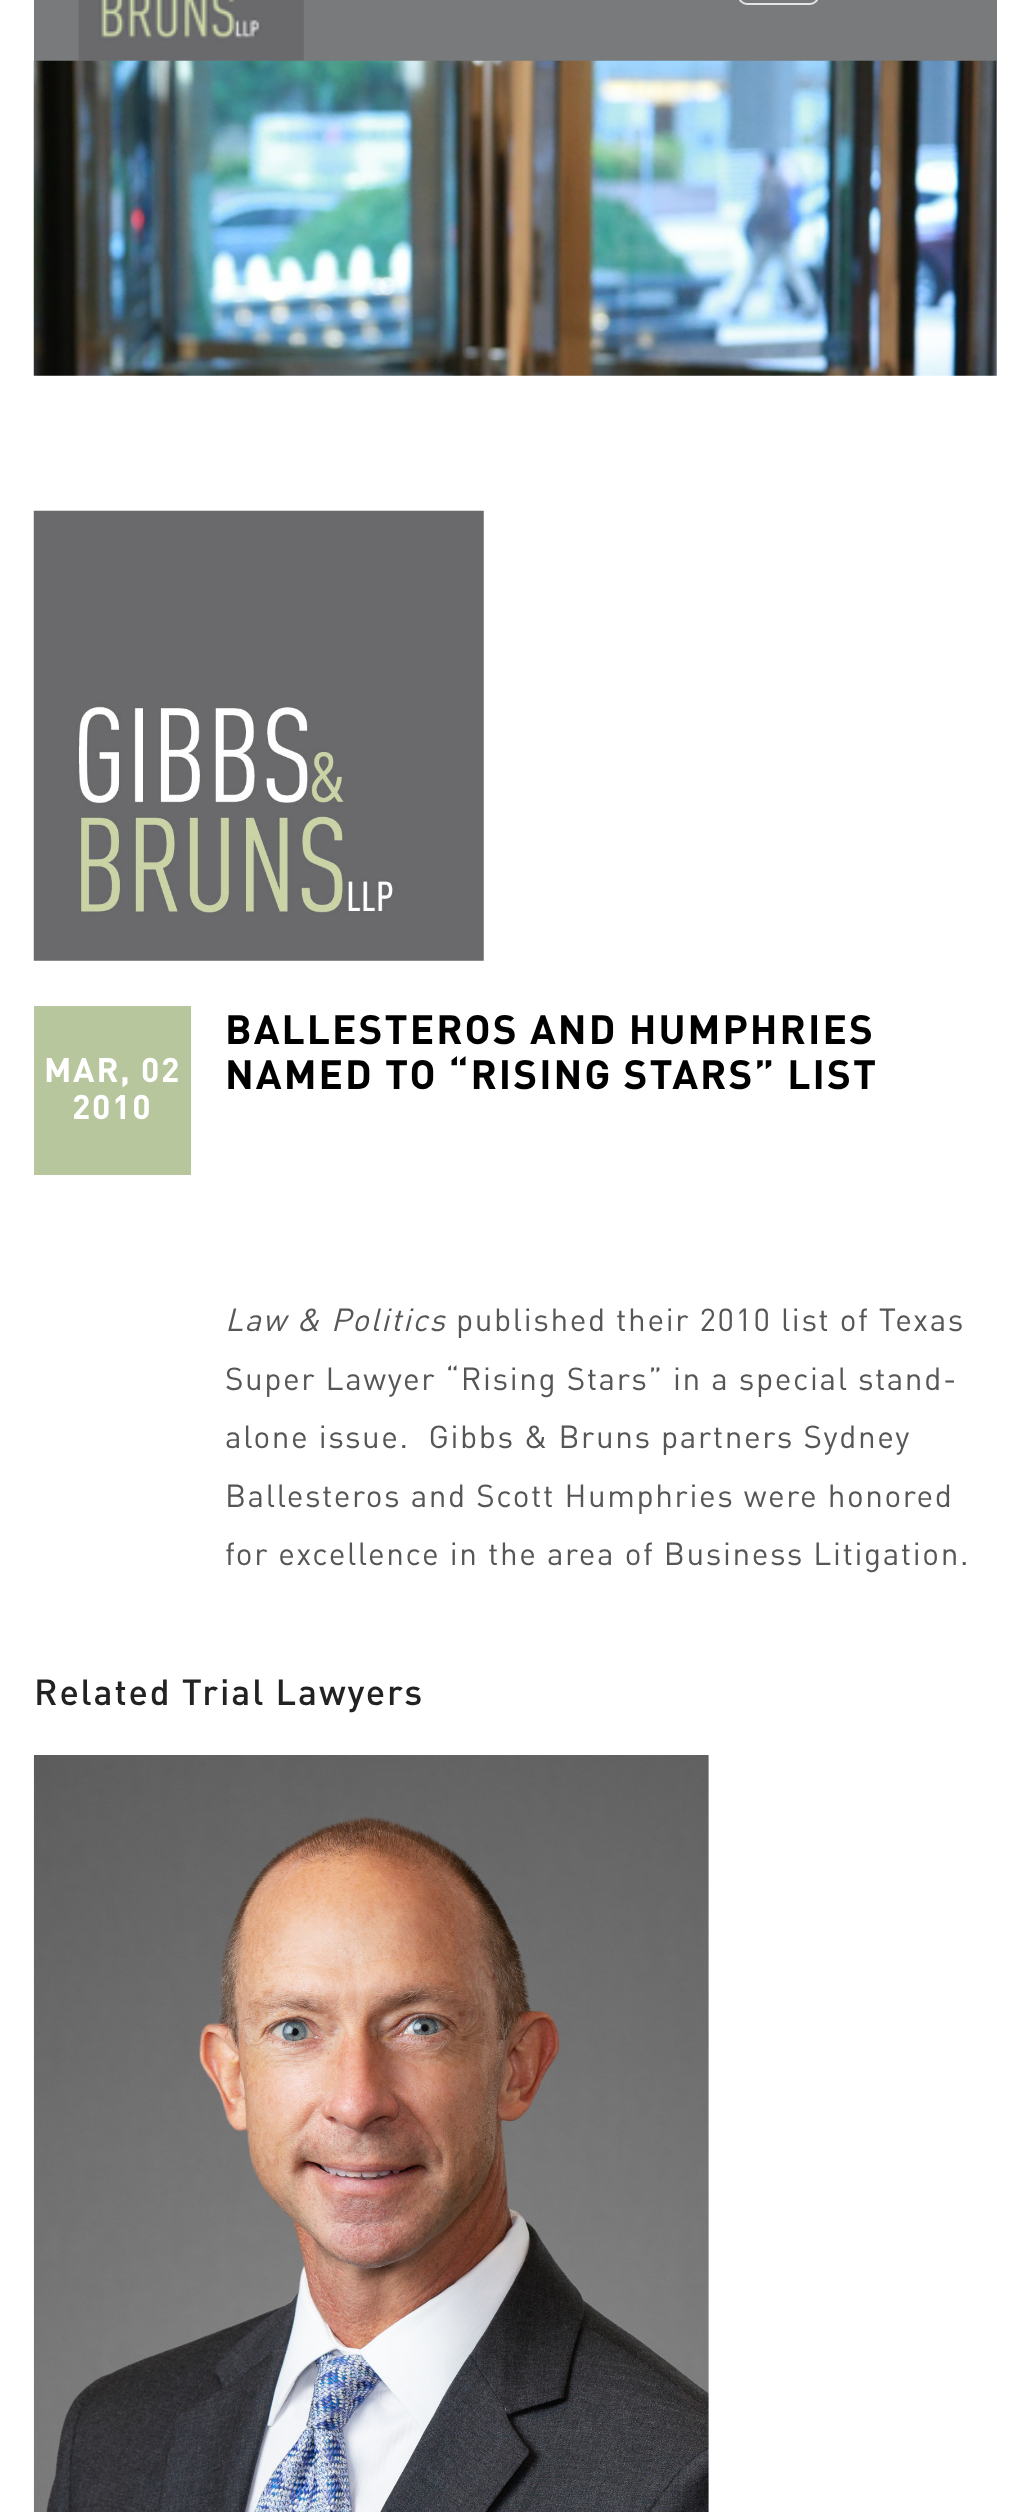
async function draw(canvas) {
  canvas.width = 1029;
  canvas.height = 2512;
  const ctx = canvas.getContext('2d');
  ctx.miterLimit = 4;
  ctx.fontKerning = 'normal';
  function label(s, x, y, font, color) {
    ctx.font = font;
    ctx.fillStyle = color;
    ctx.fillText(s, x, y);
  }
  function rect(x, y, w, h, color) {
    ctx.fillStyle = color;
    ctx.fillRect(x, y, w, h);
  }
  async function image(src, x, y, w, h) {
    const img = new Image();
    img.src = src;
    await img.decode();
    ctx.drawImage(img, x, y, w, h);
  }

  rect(0, 0, 1029, 2512, '#fff');
  rect(34, 0, 963, 61, '#797a7b');
  ctx.beginPath();
  ctx.roundRect(739, -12, 79, 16, 10);
  ctx.strokeStyle = '#e4e4e5';
  ctx.lineWidth = 2;
  ctx.stroke();
  await image('assets/img1.png', 78, 0, 226, 61);
  await image('assets/img2.png', 33, 60, 964, 316);
  await image('assets/img3.png', 33, 510, 451, 451);
  rect(34, 1006, 157, 169, '#b7c69d');
  ctx.letterSpacing = '1.75px';
  label('MAR, 02', 44, 1082, 'bold 33.75px DIN', '#fff');
  label('2010', 72, 1119, 'bold 33.75px DIN', '#fff');
  ctx.letterSpacing = '2px';
  label('BALLESTEROS AND HUMPHRIES', 225, 1044, 'bold 40.5px DIN', '#000');
  label('NAMED TO “RISING STARS” LIST', 225, 1089, 'bold 40.5px DIN', '#000');
  ctx.letterSpacing = '1.57px';
  label('Law & Politics', 225, 1331, 'italic 31.5px DIN', '#565656');
  label('published their 2010 list of Texas', 456, 1331, '31.5px DIN', '#565656');
  label('Super Lawyer “Rising Stars” in a special stand-', 225, 1390, '31.5px DIN', '#565656');
  label('alone issue.  Gibbs & Bruns partners Sydney', 225, 1448, '31.5px DIN', '#565656');
  label('Ballesteros and Scott Humphries were honored', 225, 1507, '31.5px DIN', '#565656');
  label('for excellence in the area of Business Litigation.', 225, 1565, '31.5px DIN', '#565656');
  ctx.letterSpacing = '1.8px';
  label('Related Trial Lawyers', 34, 1705, '500 36px DIN', '#222');
  rect(708, 1755, 1, 757, '#f0f0f0');
  await image('assets/img4.png', 33, 1755, 676, 757);
}

draw(document.querySelector('canvas'));
